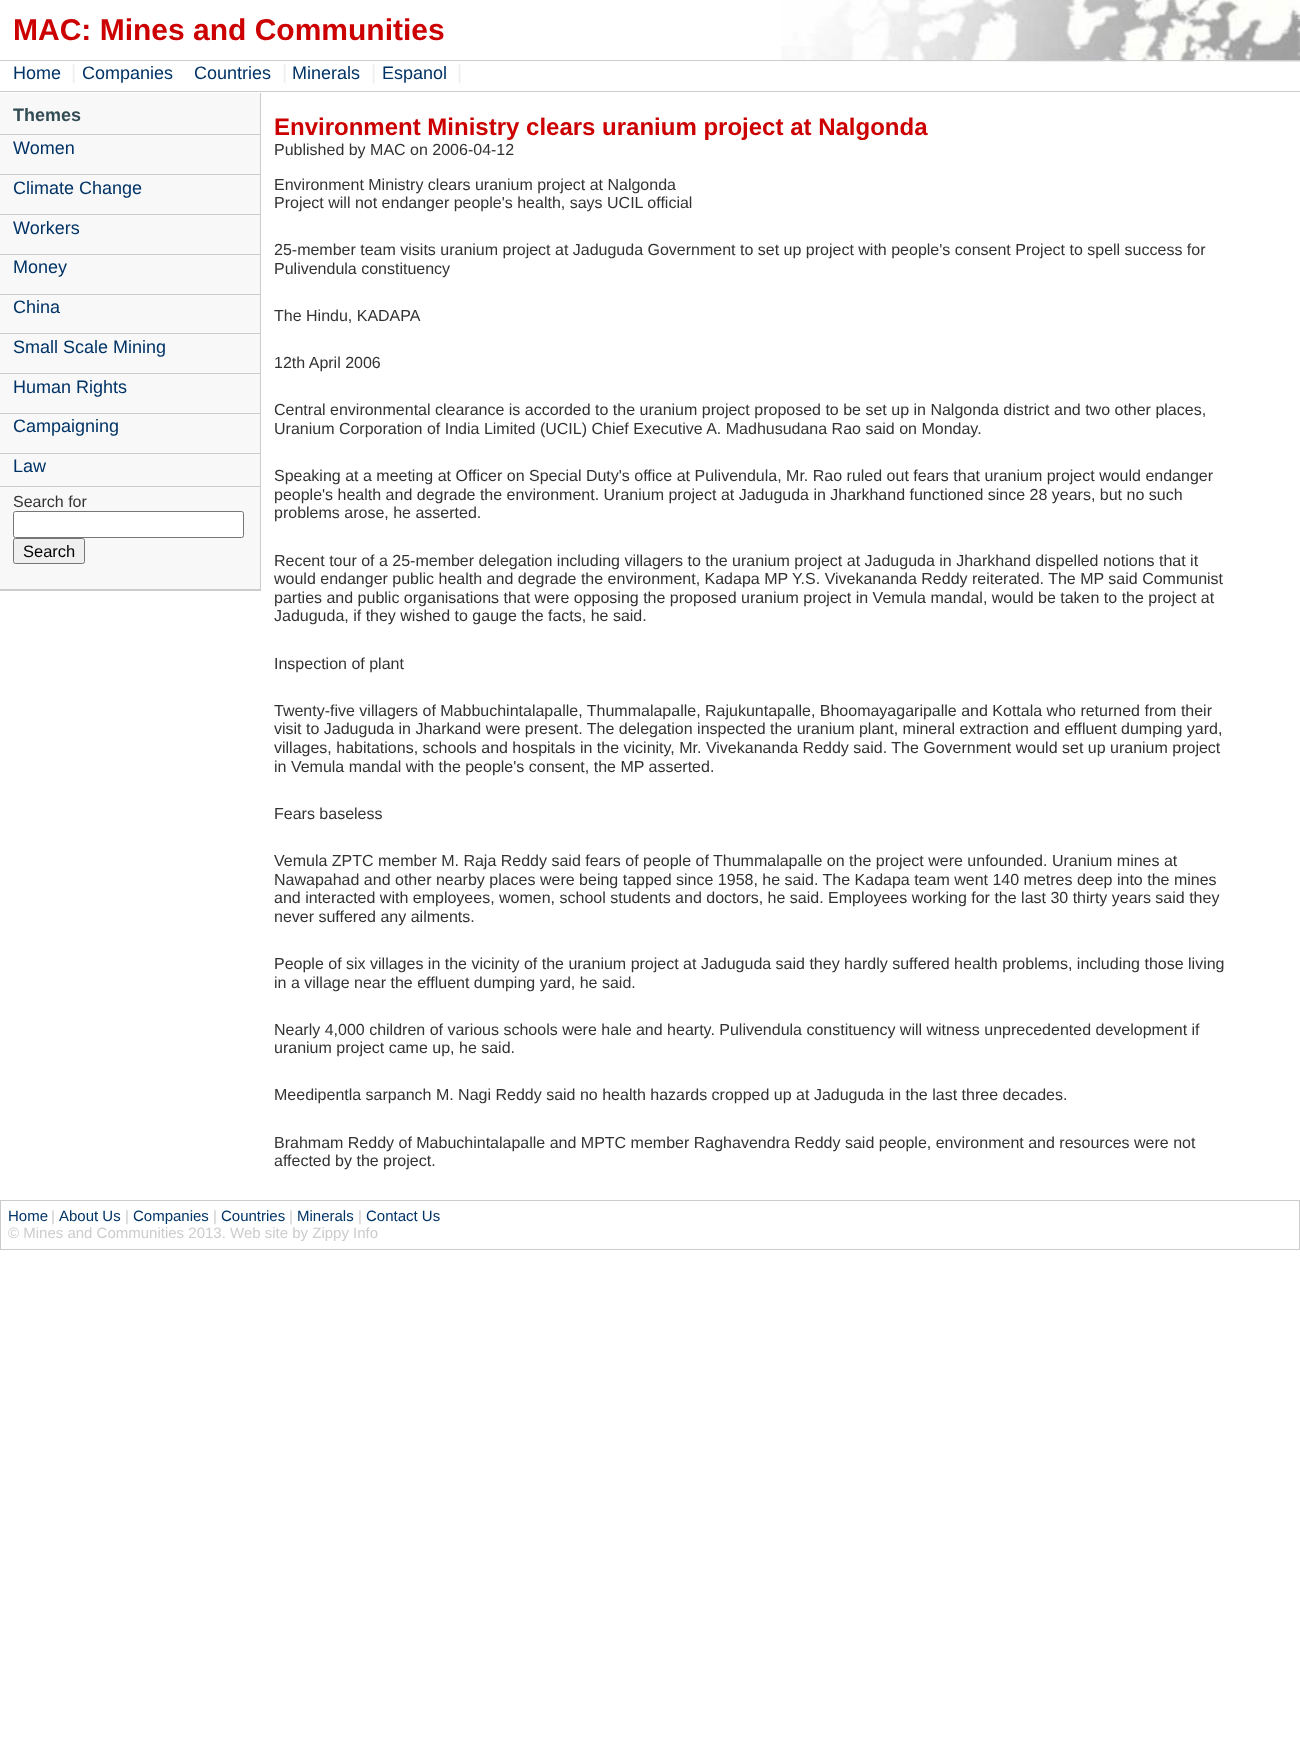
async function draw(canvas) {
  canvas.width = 1300;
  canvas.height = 1745;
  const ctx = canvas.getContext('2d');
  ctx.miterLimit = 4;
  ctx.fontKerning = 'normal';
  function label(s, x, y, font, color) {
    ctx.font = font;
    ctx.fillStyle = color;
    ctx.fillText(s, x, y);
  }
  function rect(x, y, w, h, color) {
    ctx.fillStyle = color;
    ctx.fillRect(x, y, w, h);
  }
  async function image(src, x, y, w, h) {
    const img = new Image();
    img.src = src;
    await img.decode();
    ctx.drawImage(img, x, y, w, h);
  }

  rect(0, 0, 1300, 1745, '#fff');
  await image('assets/img1.png', 781, 0, 519, 62);
  rect(0, 60, 1300, 1, '#ccc');
  label('MAC: Mines and Communities', 13, 40, 'bold 30px Liberation Sans', '#c00');
  rect(0, 91, 1300, 1, '#ccc');
  label('Home', 13, 79, '18px Liberation Sans', '#036');
  label('|', 71, 79, '20px Liberation Sans', '#eee');
  label('Companies', 82, 79, '18px Liberation Sans', '#036');
  label('Countries', 194, 79, '18px Liberation Sans', '#036');
  label('|', 282, 79, '20px Liberation Sans', '#eee');
  label('Minerals', 292, 79, '18px Liberation Sans', '#036');
  label('|', 371, 79, '20px Liberation Sans', '#eee');
  label('Espanol', 382, 79, '18px Liberation Sans', '#036');
  label('|', 457, 79, '20px Liberation Sans', '#eee');
  rect(0, 93, 260, 496, '#f8f8f8');
  rect(260, 93, 1, 498, '#ccc');
  rect(0, 590, 261, 1, '#ccc');
  rect(0, 486, 260, 1, '#ccc');
  label('Themes', 13, 121, 'bold 18px Liberation Sans', '#334d55');
  rect(0, 134, 260, 1, '#ccc');
  label('Women', 13, 154, '18px Liberation Sans', '#036');
  rect(0, 174, 260, 1, '#ccc');
  label('Climate Change', 13, 194, '18px Liberation Sans', '#036');
  rect(0, 214, 260, 1, '#ccc');
  label('Workers', 13, 234, '18px Liberation Sans', '#036');
  rect(0, 254, 260, 1, '#ccc');
  label('Money', 13, 273, '18px Liberation Sans', '#036');
  rect(0, 294, 260, 1, '#ccc');
  label('China', 13, 313, '18px Liberation Sans', '#036');
  rect(0, 333, 260, 1, '#ccc');
  label('Small Scale Mining', 13, 353, '18px Liberation Sans', '#036');
  rect(0, 373, 260, 1, '#ccc');
  label('Human Rights', 13, 393, '18px Liberation Sans', '#036');
  rect(0, 413, 260, 1, '#ccc');
  label('Campaigning', 13, 432, '18px Liberation Sans', '#036');
  rect(0, 453, 260, 1, '#ccc');
  label('Law', 13, 472, '18px Liberation Sans', '#036');
  rect(0, 589, 260, 1, '#ccc');
  label('Search for', 13, 507, '16px Liberation Sans', '#333');
  ctx.fillStyle = '#fff';
  ctx.beginPath();
  ctx.roundRect(13.5, 511.5, 230, 26, 2);
  ctx.fill();
  ctx.strokeStyle = '#767676';
  ctx.stroke();
  ctx.fillStyle = '#efefef';
  ctx.beginPath();
  ctx.roundRect(13.5, 538.5, 71, 25, 2);
  ctx.fill();
  ctx.stroke();
  label('Search', 23, 557, '16.5px Liberation Sans', '#000');
  label('Environment Ministry clears uranium project at Nalgonda', 274, 135, 'bold 24px Liberation Sans', '#c00');
  label('Published by MAC on 2006-04-12', 274, 155, '16px Liberation Sans', '#333');
  label('Environment Ministry clears uranium project at Nalgonda', 274, 190, '16px Liberation Sans', '#333');
  label('Project will not endanger people\'s health, says UCIL official', 274, 208, '16px Liberation Sans', '#333');
  label('25-member team visits uranium project at Jaduguda Government to set up project with people\'s consent Project to spell success for', 274, 255, '16px Liberation Sans', '#333');
  label('Pulivendula constituency', 274, 274, '16px Liberation Sans', '#333');
  label('The Hindu, KADAPA', 274, 321, '16px Liberation Sans', '#333');
  label('12th April 2006', 274, 368, '16px Liberation Sans', '#333');
  label('Central environmental clearance is accorded to the uranium project proposed to be set up in Nalgonda district and two other places,', 274, 415, '16px Liberation Sans', '#333');
  label('Uranium Corporation of India Limited (UCIL) Chief Executive A. Madhusudana Rao said on Monday.', 274, 434, '16px Liberation Sans', '#333');
  label('Speaking at a meeting at Officer on Special Duty\'s office at Pulivendula, Mr. Rao ruled out fears that uranium project would endanger', 274, 481, '16px Liberation Sans', '#333');
  label('people\'s health and degrade the environment. Uranium project at Jaduguda in Jharkhand functioned since 28 years, but no such', 274, 500, '16px Liberation Sans', '#333');
  label('problems arose, he asserted.', 274, 518, '16px Liberation Sans', '#333');
  label('Recent tour of a 25-member delegation including villagers to the uranium project at Jaduguda in Jharkhand dispelled notions that it', 274, 566, '16px Liberation Sans', '#333');
  label('would endanger public health and degrade the environment, Kadapa MP Y.S. Vivekananda Reddy reiterated. The MP said Communist', 274, 584, '16px Liberation Sans', '#333');
  label('parties and public organisations that were opposing the proposed uranium project in Vemula mandal, would be taken to the project at', 274, 603, '16px Liberation Sans', '#333');
  label('Jaduguda, if they wished to gauge the facts, he said.', 274, 621, '16px Liberation Sans', '#333');
  label('Inspection of plant', 274, 669, '16px Liberation Sans', '#333');
  label('Twenty-five villagers of Mabbuchintalapalle, Thummalapalle, Rajukuntapalle, Bhoomayagaripalle and Kottala who returned from their', 274, 716, '16px Liberation Sans', '#333');
  label('visit to Jaduguda in Jharkand were present. The delegation inspected the uranium plant, mineral extraction and effluent dumping yard,', 274, 734, '16px Liberation Sans', '#333');
  label('villages, habitations, schools and hospitals in the vicinity, Mr. Vivekananda Reddy said. The Government would set up uranium project', 274, 753, '16px Liberation Sans', '#333');
  label('in Vemula mandal with the people\'s consent, the MP asserted.', 274, 772, '16px Liberation Sans', '#333');
  label('Fears baseless', 274, 819, '16px Liberation Sans', '#333');
  label('Vemula ZPTC member M. Raja Reddy said fears of people of Thummalapalle on the project were unfounded. Uranium mines at', 274, 866, '16px Liberation Sans', '#333');
  label('Nawapahad and other nearby places were being tapped since 1958, he said. The Kadapa team went 140 metres deep into the mines', 274, 885, '16px Liberation Sans', '#333');
  label('and interacted with employees, women, school students and doctors, he said. Employees working for the last 30 thirty years said they', 274, 903, '16px Liberation Sans', '#333');
  label('never suffered any ailments.', 274, 922, '16px Liberation Sans', '#333');
  label('People of six villages in the vicinity of the uranium project at Jaduguda said they hardly suffered health problems, including those living', 274, 969, '16px Liberation Sans', '#333');
  label('in a village near the effluent dumping yard, he said.', 274, 988, '16px Liberation Sans', '#333');
  label('Nearly 4,000 children of various schools were hale and hearty. Pulivendula constituency will witness unprecedented development if', 274, 1035, '16px Liberation Sans', '#333');
  label('uranium project came up, he said.', 274, 1053, '16px Liberation Sans', '#333');
  label('Meedipentla sarpanch M. Nagi Reddy said no health hazards cropped up at Jaduguda in the last three decades.', 274, 1100, '16px Liberation Sans', '#333');
  label('Brahmam Reddy of Mabuchintalapalle and MPTC member Raghavendra Reddy said people, environment and resources were not', 274, 1148, '16px Liberation Sans', '#333');
  label('affected by the project.', 274, 1166, '16px Liberation Sans', '#333');
  ctx.strokeStyle = '#ccc';
  ctx.strokeRect(0.5, 1200.5, 1299, 49);
  label('Home', 8, 1221, '15px Liberation Sans', '#036');
  label('|', 51, 1221, '15px Liberation Sans', '#ccc');
  label('About Us', 59, 1221, '15px Liberation Sans', '#036');
  label('|', 125, 1221, '15px Liberation Sans', '#ccc');
  label('Companies', 133, 1221, '15px Liberation Sans', '#036');
  label('|', 213, 1221, '15px Liberation Sans', '#ccc');
  label('Countries', 221, 1221, '15px Liberation Sans', '#036');
  label('|', 289, 1221, '15px Liberation Sans', '#ccc');
  label('Minerals', 297, 1221, '15px Liberation Sans', '#036');
  label('|', 358, 1221, '15px Liberation Sans', '#ccc');
  label('Contact Us', 366, 1221, '15px Liberation Sans', '#036');
  label('© Mines and Communities 2013. Web site by Zippy Info', 8, 1238, '15px Liberation Sans', '#ccc');
}

draw(document.querySelector('canvas'));
